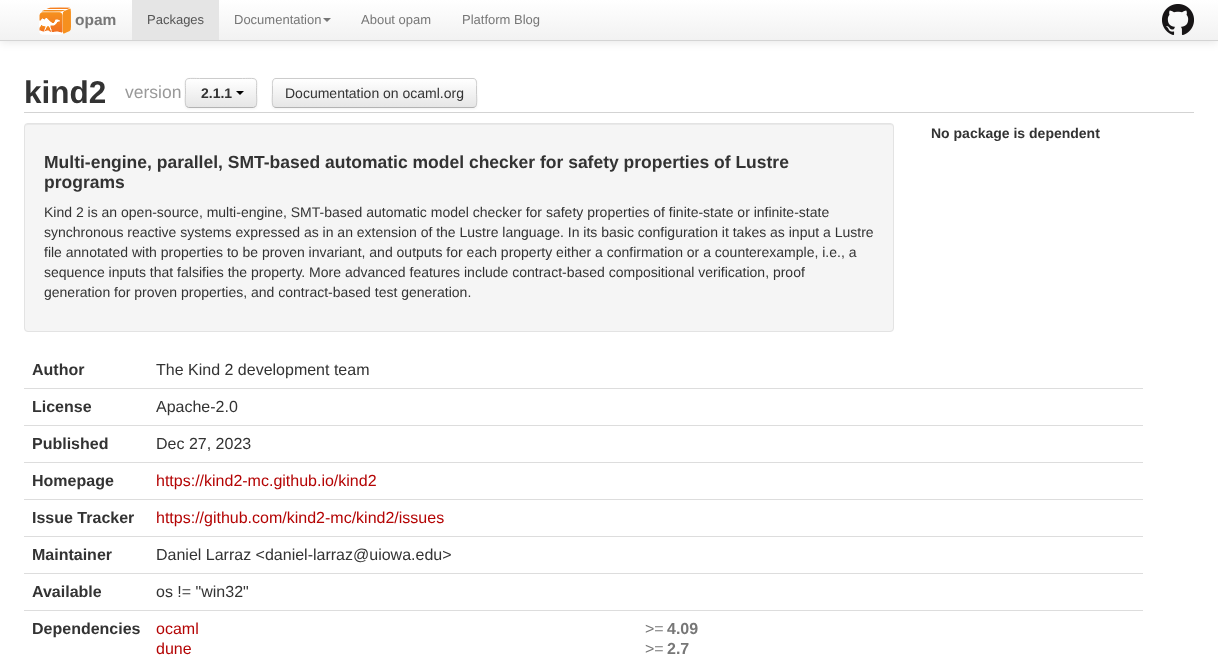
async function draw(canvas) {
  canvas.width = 1218;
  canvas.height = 669;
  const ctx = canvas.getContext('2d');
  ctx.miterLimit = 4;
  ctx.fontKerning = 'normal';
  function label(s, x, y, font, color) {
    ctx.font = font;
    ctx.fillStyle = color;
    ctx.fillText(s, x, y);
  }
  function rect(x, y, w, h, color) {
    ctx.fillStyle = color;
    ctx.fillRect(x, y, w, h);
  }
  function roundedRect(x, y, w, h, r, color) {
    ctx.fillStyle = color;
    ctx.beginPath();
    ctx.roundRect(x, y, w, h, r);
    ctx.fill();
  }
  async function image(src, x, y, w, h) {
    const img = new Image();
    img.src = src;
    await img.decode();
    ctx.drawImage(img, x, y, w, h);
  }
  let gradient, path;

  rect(0, 0, 1218, 669, '#fff');
  ctx.fillStyle = '#0000001a';
  ctx.filter = 'blur(5px)';
  ctx.beginPath();
  ctx.rect(0, 1, 1218, 41);
  ctx.fill();
  ctx.filter = 'none';
  gradient = ctx.createLinearGradient(609, 0, 609, 40);
  gradient.addColorStop(0, '#fff');
  gradient.addColorStop(1, '#f2f2f2');
  ctx.fillStyle = gradient;
  ctx.fillRect(0, 0, 1218, 40);
  rect(0, 40, 1218, 1, '#d4d4d4');
  await image('assets/img1.png', 39, 7, 32, 28);
  label('opam', 75, 25, 'bold 15.5px Liberation Sans', '#777');
  rect(132, 0, 87, 40, '#e5e5e5');
  label('Packages', 147, 24, '13px Liberation Sans', '#555');
  label('Documentation', 234, 24, '13px Liberation Sans', '#777');
  path = new Path2D('M323 18H331L327 22Z');
  ctx.fill(path);
  label('About opam', 361, 24, '13px Liberation Sans', '#777');
  label('Platform Blog', 462, 24, '13px Liberation Sans', '#777');
  await image('assets/img2.png', 1162, 4, 32, 31);
  rect(24, 112, 1170, 1, '#d3d3d3');
  label('kind2', 24, 103, 'bold 31.5px Liberation Sans', '#333');
  label('version', 125, 98, '17.5px Liberation Sans', '#999');
  ctx.fillStyle = '#0000000d';
  ctx.filter = 'blur(1px)';
  ctx.beginPath();
  ctx.roundRect(185, 79, 72, 30, 4);
  ctx.fill();
  ctx.filter = 'none';
  ctx.save();
  ctx.beginPath();
  ctx.roundRect(185, 78, 72, 30, 4);
  ctx.clip();
  gradient = ctx.createLinearGradient(221, 79, 221, 107);
  gradient.addColorStop(0, '#fff');
  gradient.addColorStop(1, '#e6e6e6');
  ctx.fillStyle = gradient;
  ctx.fillRect(185, 79, 72, 28);
  ctx.restore();
  path = new Path2D('M255.5 106.5L253.5 107.5H188.5L186.5 106.5');
  ctx.strokeStyle = '#b3b3b3';
  ctx.stroke(path);
  path = new Path2D('M186.5 106.5C184.5 104.5 185.5 96 185.5 93C185.5 76.5 183 78.5 199.5 78.5H242.5C259 78.5 256.5 76.5 256.5 93C256.5 96 257.5 104.5 255.5 106.5');
  ctx.strokeStyle = '#ccc';
  ctx.stroke(path);
  label('2.1.1', 201, 98, 'bold 14px Liberation Sans', '#333');
  ctx.fillStyle = '#000';
  path = new Path2D('M236 91H244L240 95Z');
  ctx.fill(path);
  ctx.fillStyle = '#0000000d';
  ctx.filter = 'blur(1px)';
  ctx.beginPath();
  ctx.roundRect(272, 79, 205, 30, 4);
  ctx.fill();
  ctx.filter = 'none';
  ctx.save();
  ctx.beginPath();
  ctx.roundRect(272, 78, 205, 30, 4);
  ctx.clip();
  gradient = ctx.createLinearGradient(375, 79, 375, 107);
  gradient.addColorStop(0, '#fff');
  gradient.addColorStop(1, '#e6e6e6');
  ctx.fillStyle = gradient;
  ctx.fillRect(272, 79, 205, 28);
  ctx.restore();
  path = new Path2D('M475.5 106.5C475 107 474 107.5 473 107.5H276C275 107.5 274 107 273.5 106.5');
  ctx.strokeStyle = '#b3b3b3';
  ctx.stroke(path);
  path = new Path2D('M273.5 106.5C271.5 104.5 272.5 96 272.5 93V85.5C272.5 83 272 78.5 276 78.5H473C477 78.5 476.5 83 476.5 85.5V93C476.5 96 477.5 104.5 475.5 106.5');
  ctx.strokeStyle = '#ccc';
  ctx.stroke(path);
  label('Documentation on ocaml.org', 285, 98, '14px Liberation Sans', '#333');
  label('No package is dependent', 931, 138, 'bold 14px Liberation Sans', '#333');
  roundedRect(24, 123, 870, 209, 4, '#f5f5f5');
  ctx.fillStyle = '#e9e9e9';
  path = new Path2D('M28 125H890C892 125 893 126 893 128C893 126 892 124 890 124H28C26 124 25 126 25 128C25 126 26 125 28 125Z');
  ctx.fill(path);
  ctx.beginPath();
  ctx.roundRect(24.5, 123.5, 869, 208, 3.5);
  ctx.strokeStyle = '#e3e3e3';
  ctx.stroke();
  label('Multi-engine, parallel, SMT-based automatic model checker for safety properties of Lustre', 44, 168, 'bold 17.5px Liberation Sans', '#333');
  label('programs', 44, 188, 'bold 17.5px Liberation Sans', '#333');
  label('Kind 2 is an open-source, multi-engine, SMT-based automatic model checker for safety properties of finite-state or infinite-state', 44, 217, '14px Liberation Sans', '#333');
  label('synchronous reactive systems expressed as in an extension of the Lustre language. In its basic configuration it takes as input a Lustre', 44, 237, '14px Liberation Sans', '#333');
  label('file annotated with properties to be proven invariant, and outputs for each property either a confirmation or a counterexample, i.e., a', 44, 257, '14px Liberation Sans', '#333');
  label('sequence inputs that falsifies the property. More advanced features include contract-based compositional verification, proof', 44, 277, '14px Liberation Sans', '#333');
  label('generation for proven properties, and contract-based test generation.', 44, 297, '14px Liberation Sans', '#333');
  label('Author', 32, 375, 'bold 16px Liberation Sans', '#333');
  label('The Kind 2 development team', 156, 375, '16px Liberation Sans', '#333');
  label('License', 32, 412, 'bold 16px Liberation Sans', '#333');
  rect(24, 388, 1119, 1, '#ddd');
  label('Apache-2.0', 156, 412, '16px Liberation Sans', '#333');
  label('Published', 32, 449, 'bold 16px Liberation Sans', '#333');
  rect(24, 425, 1119, 1, '#ddd');
  label('Dec 27, 2023', 156, 449, '16px Liberation Sans', '#333');
  label('Homepage', 32, 486, 'bold 16px Liberation Sans', '#333');
  rect(24, 462, 1119, 1, '#ddd');
  label('https://kind2-mc.github.io/kind2', 156, 486, '16px Liberation Sans', '#b40404');
  label('Issue Tracker', 32, 523, 'bold 16px Liberation Sans', '#333');
  rect(24, 499, 1119, 1, '#ddd');
  label('https://github.com/kind2-mc/kind2/issues', 156, 523, '16px Liberation Sans', '#b40404');
  label('Maintainer', 32, 560, 'bold 16px Liberation Sans', '#333');
  rect(24, 536, 1119, 1, '#ddd');
  label('Daniel Larraz <daniel-larraz@uiowa.edu>', 156, 560, '16px Liberation Sans', '#333');
  label('Available', 32, 597, 'bold 16px Liberation Sans', '#333');
  rect(24, 573, 1119, 1, '#ddd');
  label('os != "win32"', 156, 597, '16px Liberation Sans', '#333');
  label('Dependencies', 32, 634, 'bold 16px Liberation Sans', '#333');
  rect(24, 610, 1119, 1, '#ddd');
  label('ocaml', 156, 634, '16px Liberation Sans', '#b40404');
  label('>=', 645, 634, '16px Liberation Sans', '#777');
  label('4.09', 667, 634, 'bold 16px Liberation Sans', '#777');
  label('dune', 156, 654, '16px Liberation Sans', '#b40404');
  label('>=', 645, 654, '16px Liberation Sans', '#777');
  label('2.7', 667, 654, 'bold 16px Liberation Sans', '#777');
}

draw(document.querySelector('canvas'));
